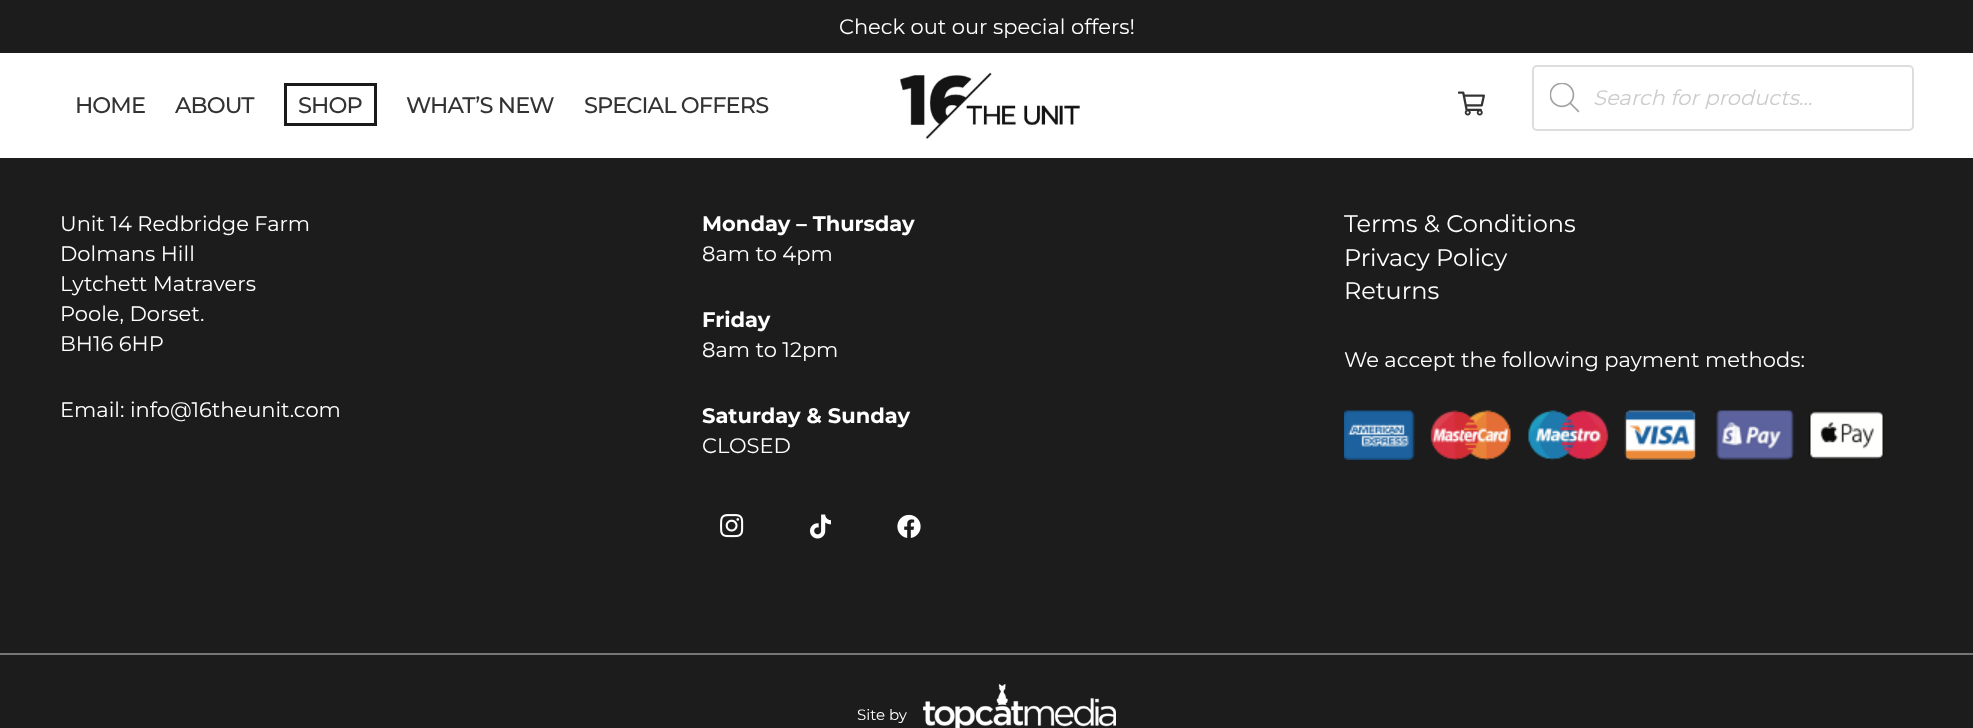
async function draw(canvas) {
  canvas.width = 1973;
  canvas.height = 728;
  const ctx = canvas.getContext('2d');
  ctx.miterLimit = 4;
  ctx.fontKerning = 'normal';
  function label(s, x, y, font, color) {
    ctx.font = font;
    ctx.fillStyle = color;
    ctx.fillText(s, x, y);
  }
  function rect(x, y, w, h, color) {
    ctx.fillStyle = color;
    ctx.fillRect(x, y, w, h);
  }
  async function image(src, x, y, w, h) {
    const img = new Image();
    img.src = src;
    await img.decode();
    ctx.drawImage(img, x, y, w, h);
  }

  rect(0, 0, 1973, 728, '#1c1c1c');
  label('Check out our special offers!', 839, 34, '21px Montserrat', '#fff');
  rect(0, 53, 1973, 105, '#fff');
  ctx.letterSpacing = '-0.9px';
  label('HOME', 75, 113, '500 22.5px Montserrat', '#333');
  label('ABOUT', 175, 113, '500 22.5px Montserrat', '#333');
  ctx.strokeStyle = '#1a1a1a';
  ctx.lineWidth = 3;
  ctx.strokeRect(285.5, 84.5, 90, 40);
  label('SHOP', 298, 113, '500 22.5px Montserrat', '#333');
  label('WHAT’S NEW', 406, 113, '500 22.5px Montserrat', '#333');
  label('SPECIAL OFFERS', 584, 113, '500 22.5px Montserrat', '#333');
  await image('assets/img1.png', 900, 72, 180, 67);
  await image('assets/img2.png', 1458, 91, 27, 25);
  ctx.beginPath();
  ctx.roundRect(1533, 66, 380, 64, 4);
  ctx.strokeStyle = '#ddd';
  ctx.lineWidth = 2;
  ctx.stroke();
  await image('assets/img3.png', 1550, 83, 30, 30);
  ctx.letterSpacing = '0px';
  label('Search for products...', 1593, 105, 'italic 21px Montserrat', '#ccc');
  label('Unit 14 Redbridge Farm', 60, 231, '21px Montserrat', '#fff');
  label('Dolmans Hill', 60, 261, '21px Montserrat', '#fff');
  label('Lytchett Matravers', 60, 291, '21px Montserrat', '#fff');
  label('Poole, Dorset.', 60, 321, '21px Montserrat', '#fff');
  label('BH16 6HP', 60, 351, '21px Montserrat', '#fff');
  label('Email: info@16theunit.com', 60, 417, '21px Montserrat', '#fff');
  label('Monday – Thursday', 702, 231, 'bold 21px Montserrat', '#fff');
  label('8am to 4pm', 702, 261, '21px Montserrat', '#fff');
  label('Friday', 702, 327, 'bold 21px Montserrat', '#fff');
  label('8am to 12pm', 702, 357, '21px Montserrat', '#fff');
  label('Saturday & Sunday', 702, 423, 'bold 21px Montserrat', '#fff');
  label('CLOSED', 702, 453, '21px Montserrat', '#fff');
  await image('assets/img4.png', 720, 514, 24, 24);
  await image('assets/img5.png', 810, 514, 21, 25);
  await image('assets/img6.png', 897, 514, 24, 24);
  label('Terms & Conditions', 1344, 232, '24px Montserrat', '#fff');
  label('Privacy Policy', 1344, 266, '24px Montserrat', '#fff');
  label('Returns', 1344, 299, '24px Montserrat', '#fff');
  label('We accept the following payment methods:', 1344, 367, '21px Montserrat', '#fff');
  await image('assets/img7.png', 1344, 410, 540, 50);
  rect(0, 653, 1973, 2, '#767676');
  label('Site by', 857, 720, '15px Montserrat', '#fff');
  await image('assets/img8.png', 923, 684, 193, 44);
}

draw(document.querySelector('canvas'));
